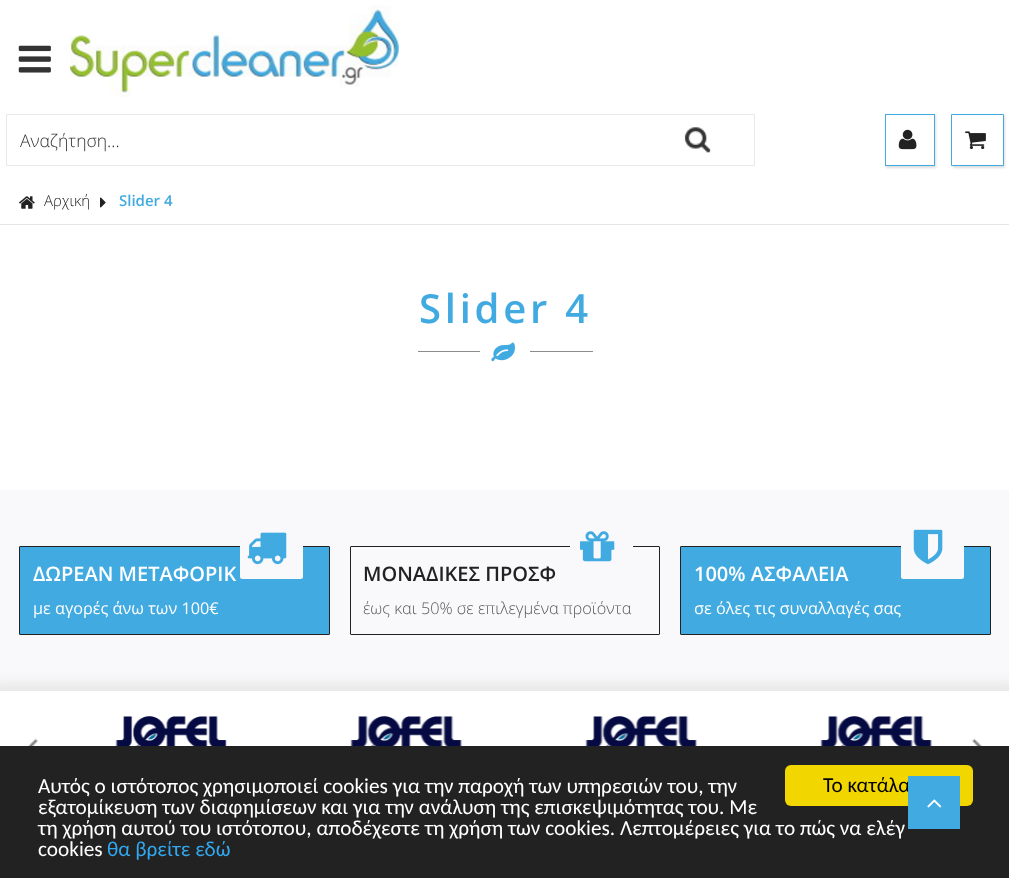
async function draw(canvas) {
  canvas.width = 1009;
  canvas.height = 878;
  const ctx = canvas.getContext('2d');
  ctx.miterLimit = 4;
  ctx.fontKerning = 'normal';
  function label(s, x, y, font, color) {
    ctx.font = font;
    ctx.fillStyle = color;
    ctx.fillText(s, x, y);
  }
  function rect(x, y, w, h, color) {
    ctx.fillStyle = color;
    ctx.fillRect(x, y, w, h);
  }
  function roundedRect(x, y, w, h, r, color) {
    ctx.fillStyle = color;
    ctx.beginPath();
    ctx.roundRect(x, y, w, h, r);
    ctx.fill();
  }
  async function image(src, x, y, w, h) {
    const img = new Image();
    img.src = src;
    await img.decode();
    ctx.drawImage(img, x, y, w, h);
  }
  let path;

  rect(0, 0, 1009, 878, '#fff');
  await image('assets/img1.png', 18, 45, 33, 28);
  await image('assets/img2.png', 70, 5, 329, 92);
  ctx.strokeStyle = '#e9e9e9';
  ctx.strokeRect(6.5, 114.5, 748, 51);
  label('Αναζήτηση...', 20, 147, '300 17.5px Open Sans', '#333');
  await image('assets/img3.png', 684, 127, 27, 26);
  ctx.save();
  path = new Path2D('M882 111H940V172H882ZM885 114H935V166H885Z');
  ctx.clip(path, 'evenodd');
  ctx.fillStyle = '#ddd';
  ctx.filter = 'blur(1px)';
  ctx.beginPath();
  ctx.rect(886, 115, 50, 53);
  ctx.fill();
  ctx.filter = 'none';
  ctx.restore();
  ctx.strokeStyle = '#41aae1';
  ctx.strokeRect(885.5, 114.5, 49, 51);
  await image('assets/img4.png', 898, 129, 19, 21);
  ctx.fillStyle = '#ddd';
  ctx.filter = 'blur(1px)';
  ctx.beginPath();
  ctx.rect(953, 115, 52, 53);
  ctx.fill();
  ctx.filter = 'none';
  ctx.fillStyle = '#fff';
  ctx.beginPath();
  ctx.rect(951.5, 114.5, 52, 51);
  ctx.fill();
  ctx.stroke();
  await image('assets/img5.png', 965, 131, 21, 19);
  rect(0, 224, 1009, 1, '#e5e5e5');
  await image('assets/img6.png', 19, 196, 16, 13);
  label('Αρχική', 44, 206, '300 15px Open Sans', '#222');
  await image('assets/img7.png', 100, 197, 6, 11);
  label('Slider 4', 119, 206, '600 15px Open Sans', '#41aae1');
  ctx.letterSpacing = '3.75px';
  label('Slider 4', 419, 323, '600 40px Open Sans', '#41aae1');
  rect(418, 351, 175, 1, '#8c8c8c');
  rect(480, 351, 50, 1, '#fff');
  await image('assets/img8.png', 491, 342, 24, 20);
  rect(0, 490, 1009, 201, '#f9f9fb');
  ctx.fillStyle = '#41aae1';
  ctx.beginPath();
  ctx.roundRect(19.5, 546.5, 310, 88, 0.5);
  ctx.fill();
  ctx.strokeStyle = '#222';
  ctx.stroke();
  roundedRect(240, 516, 63, 63, 2.5, '#f9f9fb');
  await image('assets/img9.png', 247, 532, 40, 33);
  ctx.letterSpacing = '0px';
  label('ΔΩΡΕΑΝ ΜΕΤΑΦΟΡΙΚ', 33, 581, '600 20px Open Sans', '#fff');
  label('με αγορές άνω των 100€', 33, 614, '16.25px Open Sans', '#fff');
  ctx.beginPath();
  ctx.roundRect(350.5, 546.5, 309, 88, 0.5);
  ctx.stroke();
  roundedRect(570, 516, 63, 63, 2.5, '#f9f9fb');
  await image('assets/img10.png', 580, 531, 35, 31);
  label('ΜΟΝΑΔΙΚΕΣ ΠΡΟΣΦ', 363, 581, '600 20px Open Sans', '#222');
  label('έως και 50% σε επιλεγμένα προϊόντα', 363, 614, '300 16.25px Open Sans', '#595959');
  ctx.fillStyle = '#41aae1';
  ctx.beginPath();
  ctx.roundRect(680.5, 546.5, 310, 88, 0.5);
  ctx.fill();
  ctx.stroke();
  roundedRect(901, 516, 63, 63, 2.5, '#f9f9fb');
  await image('assets/img11.png', 913, 529, 30, 36);
  label('100% ΑΣΦΑΛΕΙΑ', 694, 581, '600 20px Open Sans', '#fff');
  label('σε όλες τις συναλλαγές σας', 694, 614, '16.25px Open Sans', '#fff');
  ctx.fillStyle = '#e7e7e7';
  ctx.filter = 'blur(6px)';
  ctx.beginPath();
  ctx.rect(-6, 683, 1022, 125);
  ctx.fill();
  ctx.filter = 'none';
  rect(0, 691, 1009, 55, '#fff');
  await image('assets/img12.png', 78, 716, 149, 30);
  await image('assets/img13.png', 313, 716, 150, 30);
  await image('assets/img13.png', 548, 716, 150, 30);
  await image('assets/img13.png', 783, 716, 150, 30);
  await image('assets/img14.png', 28, 738, 10, 8);
  await image('assets/img15.png', 972, 738, 10, 8);
  rect(0, 746, 1009, 132, '#222');
  roundedRect(785, 765, 188, 41, 6, '#f1d600');
  label('Το κατάλα', 823, 792, '21.25px Carlito', '#000');
  label('Αυτός ο ιστότοπος χρησιμοποιεί cookies για την παροχή των υπηρεσιών του, την', 38, 793, '21.25px Carlito', '#fff');
  label('εξατομίκευση των διαφημίσεων και για την ανάλυση της επισκεψιμότητας του. Με', 38, 814, '21.25px Carlito', '#fff');
  label('τη χρήση αυτού του ιστότοπου, αποδέχεστε τη χρήση των cookies. Λεπτομέρειες για το πώς να ελέγ', 38, 835, '21.25px Carlito', '#fff');
  label('cookies', 38, 856, '21.25px Carlito', '#fff');
  label('θα βρείτε εδώ', 107, 856, '21.25px Carlito', '#31a8f0');
  rect(908, 776, 52, 53, '#41aae1');
  await image('assets/img16.png', 927, 799, 15, 9);
}

draw(document.querySelector('canvas'));
